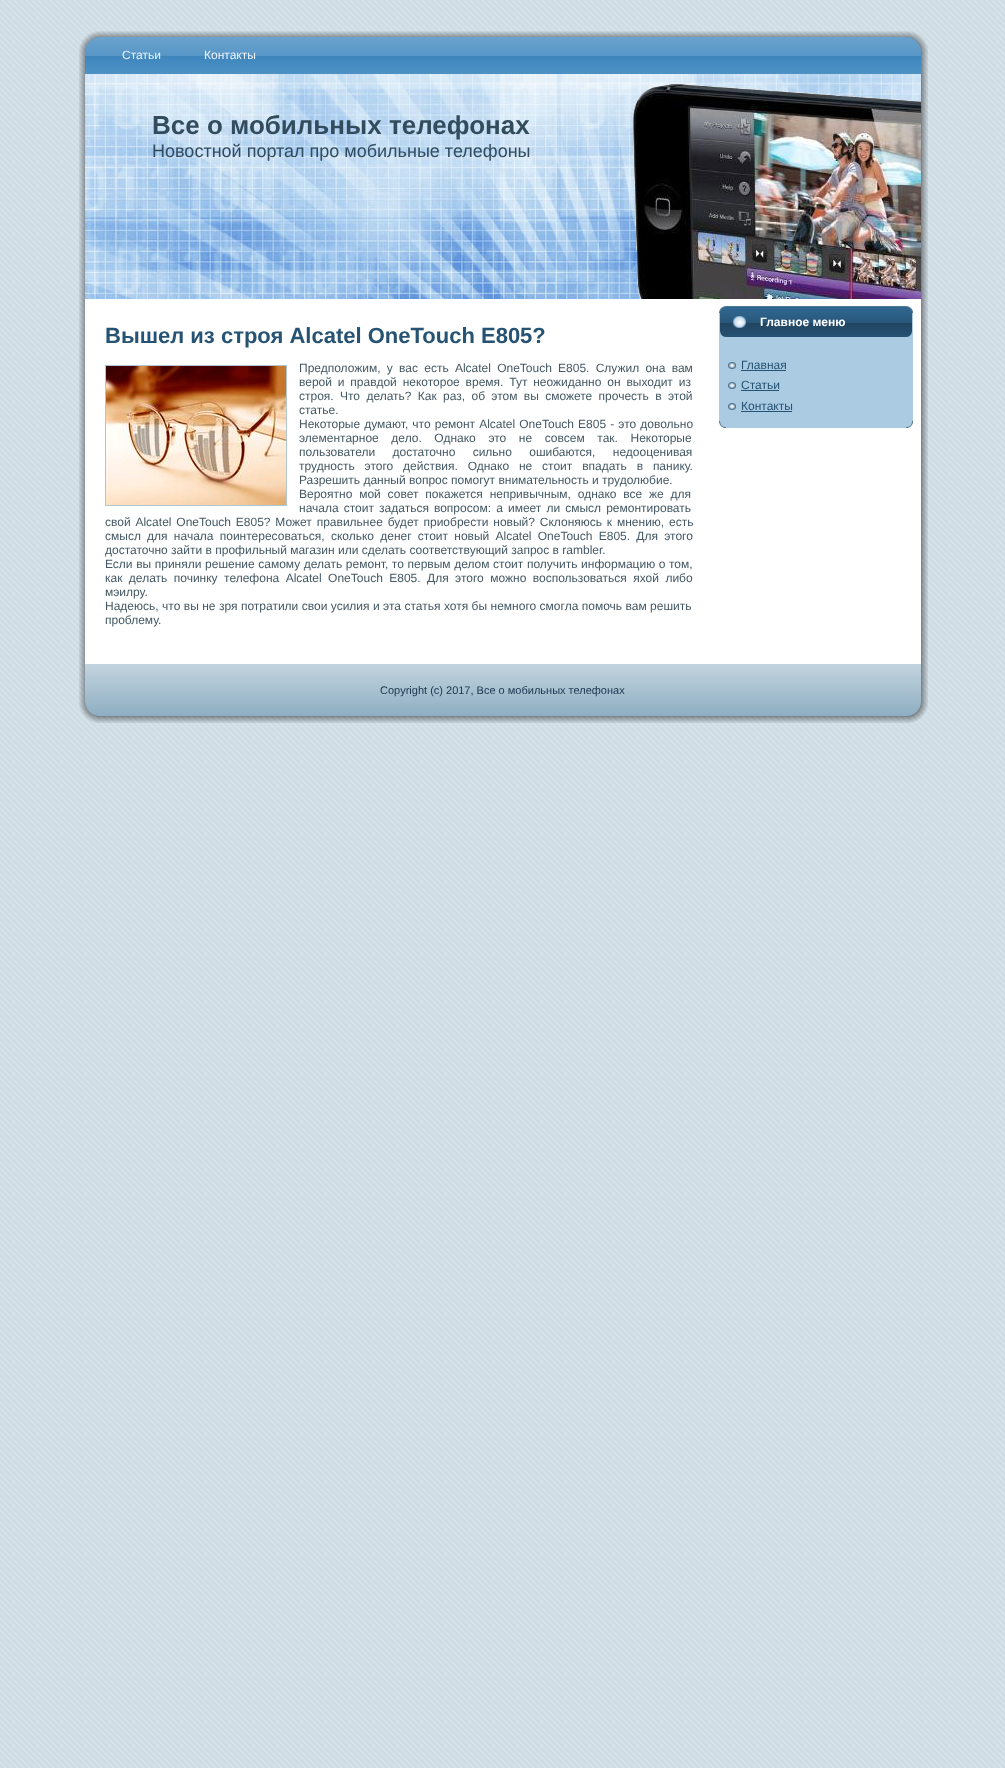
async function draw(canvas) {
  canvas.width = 1005;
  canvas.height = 1768;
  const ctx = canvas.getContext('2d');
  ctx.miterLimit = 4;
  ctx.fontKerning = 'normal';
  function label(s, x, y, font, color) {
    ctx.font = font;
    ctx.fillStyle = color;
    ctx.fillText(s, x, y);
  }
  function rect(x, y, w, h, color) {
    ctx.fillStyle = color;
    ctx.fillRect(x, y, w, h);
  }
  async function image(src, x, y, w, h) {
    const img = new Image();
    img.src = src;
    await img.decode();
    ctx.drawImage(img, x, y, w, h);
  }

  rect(0, 0, 1005, 1768, '#fff');
  await image('assets/img1.png', 0, 0, 1005, 1768);
  await image('assets/img2.png', 79, 31, 42, 42);
  await image('assets/img3.png', 121, 31, 764, 6);
  await image('assets/img4.png', 885, 31, 43, 42);
  await image('assets/img5.png', 79, 73, 42, 607);
  await image('assets/img19.png', 885, 73, 43, 607);
  await image('assets/img6.png', 85, 37, 821, 37);
  await image('assets/img7.png', 906, 37, 15, 37);
  label('Статьи', 122, 59, '12px Liberation Sans', '#ecf3f9');
  label('Контакты', 204, 59, '12px Liberation Sans', '#ecf3f9');
  await image('assets/img8.png', 85, 74, 836, 225);
  label('Все о мобильных телефонах', 152, 134, 'bold 26px Liberation Sans', '#324c5d');
  label('Новостной портал про мобильные телефоны', 152, 157, '18px Liberation Sans', '#324c5d');
  rect(121, 299, 764, 365, '#fff');
  label('Вышел из строя Alcatel OneTouch E805?', 105, 343, 'bold 22px Liberation Sans', '#265273');
  ctx.strokeStyle = '#afc6d4';
  ctx.strokeRect(105.5, 365.5, 181, 140);
  await image('assets/img9.png', 106, 366, 180, 139);
  ctx.wordSpacing = '2.9px';
  label('Предположим, у вас есть Alcatel OneTouch E805. Служил она вам', 299, 372, '12px Liberation Sans', '#445864');
  ctx.wordSpacing = '2.5px';
  label('верой и правдой некоторое время. Тут неожиданно он выходит из', 299, 386, '12px Liberation Sans', '#445864');
  ctx.wordSpacing = '3px';
  label('строя. Что делать? Как раз, об этом вы сможете прочесть в этой', 299, 400, '12px Liberation Sans', '#445864');
  ctx.wordSpacing = '0px';
  label('статье.', 299, 414, '12px Liberation Sans', '#445864');
  ctx.wordSpacing = '0.75px';
  label('Некоторые думают, что ремонт Alcatel OneTouch E805 - это довольно', 299, 428, '12px Liberation Sans', '#445864');
  ctx.wordSpacing = '9.25px';
  label('элементарное дело. Однако это не совсем так. Некоторые', 299, 442, '12px Liberation Sans', '#445864');
  ctx.wordSpacing = '14px';
  label('пользователи достаточно сильно ошибаются, недооценивая', 299, 456, '12px Liberation Sans', '#445864');
  ctx.wordSpacing = '6.5px';
  label('трудность этого действия. Однако не стоит впадать в панику.', 299, 470, '12px Liberation Sans', '#445864');
  ctx.wordSpacing = '0px';
  label('Разрешить данный вопрос помогут внимательность и трудолюбие.', 299, 484, '12px Liberation Sans', '#445864');
  ctx.wordSpacing = '3.5px';
  label('Вероятно мой совет покажется непривычным, однако все же для', 299, 498, '12px Liberation Sans', '#445864');
  ctx.wordSpacing = '1.75px';
  label('начала стоит задаться вопросом: а имеет ли смысл ремонтировать', 299, 512, '12px Liberation Sans', '#445864');
  ctx.wordSpacing = '1.5px';
  label('свой Alcatel OneTouch E805? Может правильнее будет приобрести новый? Склоняюсь к мнению, есть', 105, 526, '12px Liberation Sans', '#445864');
  ctx.wordSpacing = '2.9px';
  label('смысл для начала поинтересоваться, сколько денег стоит новый Alcatel OneTouch E805. Для этого', 105, 540, '12px Liberation Sans', '#445864');
  ctx.wordSpacing = '0px';
  label('достаточно зайти в профильный магазин или сделать соответствующий запрос в rambler.', 105, 554, '12px Liberation Sans', '#445864');
  ctx.wordSpacing = '0.25px';
  label('Если вы приняли решение самому делать ремонт, то первым делом стоит получить информацию о том,', 105, 568, '12px Liberation Sans', '#445864');
  ctx.wordSpacing = '3.1px';
  label('как делать починку телефона Alcatel OneTouch E805. Для этого можно воспользоваться яхой либо', 105, 582, '12px Liberation Sans', '#445864');
  ctx.wordSpacing = '0px';
  label('мэилру.', 105, 596, '12px Liberation Sans', '#445864');
  ctx.wordSpacing = '0.1px';
  label('Надеюсь, что вы не зря потратили свои усилия и эта статья хотя бы немного смогла помочь вам решить', 105, 610, '12px Liberation Sans', '#445864');
  ctx.wordSpacing = '0px';
  label('проблему.', 105, 624, '12px Liberation Sans', '#445864');
  await image('assets/img10.png', 719, 306, 7, 7);
  rect(726, 306, 180, 1, '#4f7892');
  await image('assets/img11.png', 906, 306, 7, 7);
  rect(719, 313, 7, 108, '#abcbe3');
  await image('assets/img12.png', 720, 307, 186, 30);
  rect(906, 313, 7, 108, '#abcbe3');
  await image('assets/img13.png', 906, 307, 6, 30);
  await image('assets/img14.png', 733, 316, 13, 12);
  label('Главное меню', 760, 326, 'bold 12px Liberation Sans', '#fff');
  rect(726, 337, 180, 91, '#abcbe3');
  await image('assets/img15.png', 728, 362, 8, 7);
  label('Главная', 741, 369, '12px Liberation Sans', '#265273');
  rect(741, 370, 45, 1, '#265273');
  await image('assets/img15.png', 728, 382, 8, 7);
  label('Статьи', 741, 389, '12px Liberation Sans', '#265273');
  rect(741, 390, 38, 1, '#265273');
  await image('assets/img15.png', 728, 403, 8, 7);
  label('Контакты', 741, 410, '12px Liberation Sans', '#265273');
  rect(741, 411, 51, 1, '#265273');
  await image('assets/img16.png', 719, 421, 7, 7);
  await image('assets/img17.png', 906, 421, 7, 7);
  await image('assets/img20.png', 79, 680, 42, 43);
  await image('assets/img22.png', 885, 680, 43, 43);
  await image('assets/img18.png', 85, 664, 836, 52);
  label('Copyright (c) 2017, Все о мобильных телефонах', 380, 694, '11px Liberation Sans', '#1a364d');
  await image('assets/img21.png', 121, 716, 764, 7);
}

draw(document.querySelector('canvas'));
